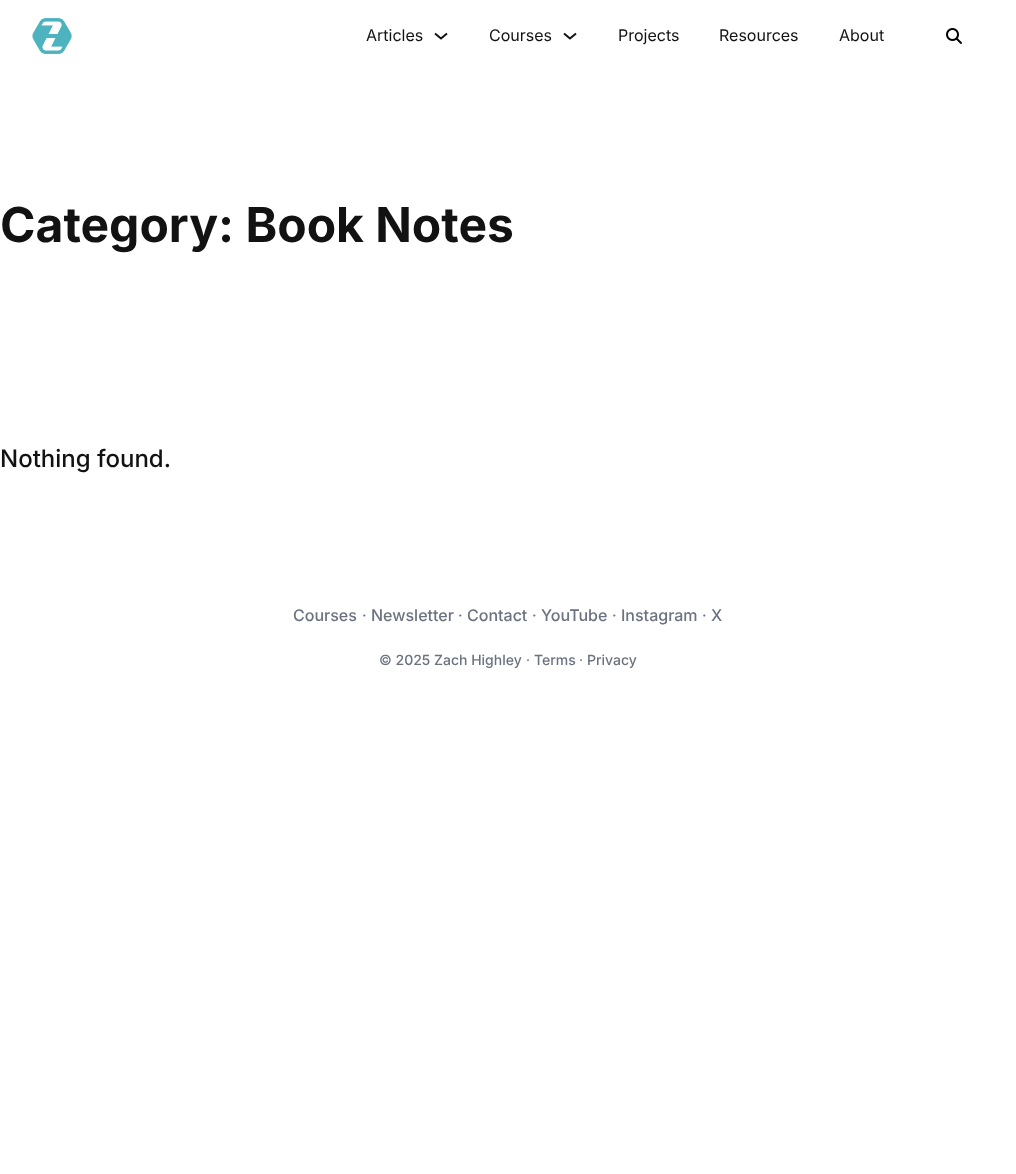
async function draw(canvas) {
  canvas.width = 1016;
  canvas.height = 1174;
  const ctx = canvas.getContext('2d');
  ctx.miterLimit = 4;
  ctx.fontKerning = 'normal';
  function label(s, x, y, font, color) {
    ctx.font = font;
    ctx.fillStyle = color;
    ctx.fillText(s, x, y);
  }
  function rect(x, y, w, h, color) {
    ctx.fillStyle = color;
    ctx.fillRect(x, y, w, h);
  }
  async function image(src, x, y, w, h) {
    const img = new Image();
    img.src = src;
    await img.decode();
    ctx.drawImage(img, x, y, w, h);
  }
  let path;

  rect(0, 0, 1016, 1174, '#fff');
  await image('assets/img1.png', 32, 18, 40, 36);
  label('Articles', 366, 41, '16px Inter', '#121212');
  path = new Path2D('M435 33.5L441 38.5L447 33.5');
  ctx.strokeStyle = '#121212';
  ctx.lineWidth = 2;
  ctx.stroke(path);
  label('Courses', 489, 41, '16px Inter', '#121212');
  path = new Path2D('M564 33.5L570 38.5L576 33.5');
  ctx.stroke(path);
  label('Projects', 618, 41, '16px Inter', '#121212');
  label('Resources', 719, 41, '16px Inter', '#121212');
  label('About', 839, 41, '16px Inter', '#121212');
  await image('assets/img2.png', 946, 28, 16, 16);
  label('Category: Book Notes', 0, 242, 'bold 48px Inter', '#121212');
  label('Nothing found.', 0, 467, '500 24px Inter', '#121212');
  label('Courses', 293, 621, '500 16px Inter', '#6b7280');
  label('·', 362, 621, '16px Inter', '#6b7280');
  label('Newsletter', 371, 621, '500 16px Inter', '#6b7280');
  label('·', 458, 621, '16px Inter', '#6b7280');
  label('Contact', 467, 621, '500 16px Inter', '#6b7280');
  label('·', 532, 621, '16px Inter', '#6b7280');
  label('YouTube', 541, 621, '500 16px Inter', '#6b7280');
  label('·', 612, 621, '16px Inter', '#6b7280');
  label('Instagram', 621, 621, '500 16px Inter', '#6b7280');
  label('·', 702, 621, '16px Inter', '#6b7280');
  label('X', 711, 621, '500 16px Inter', '#6b7280');
  label('© 2025 Zach Highley', 379, 665, '500 14px Inter', '#6b7280');
  label('·', 526, 665, '14px Inter', '#6b7280');
  label('Terms', 534, 665, '500 14px Inter', '#6b7280');
  label('·', 579, 665, '14px Inter', '#6b7280');
  label('Privacy', 587, 665, '500 14px Inter', '#6b7280');
}

draw(document.querySelector('canvas'));
